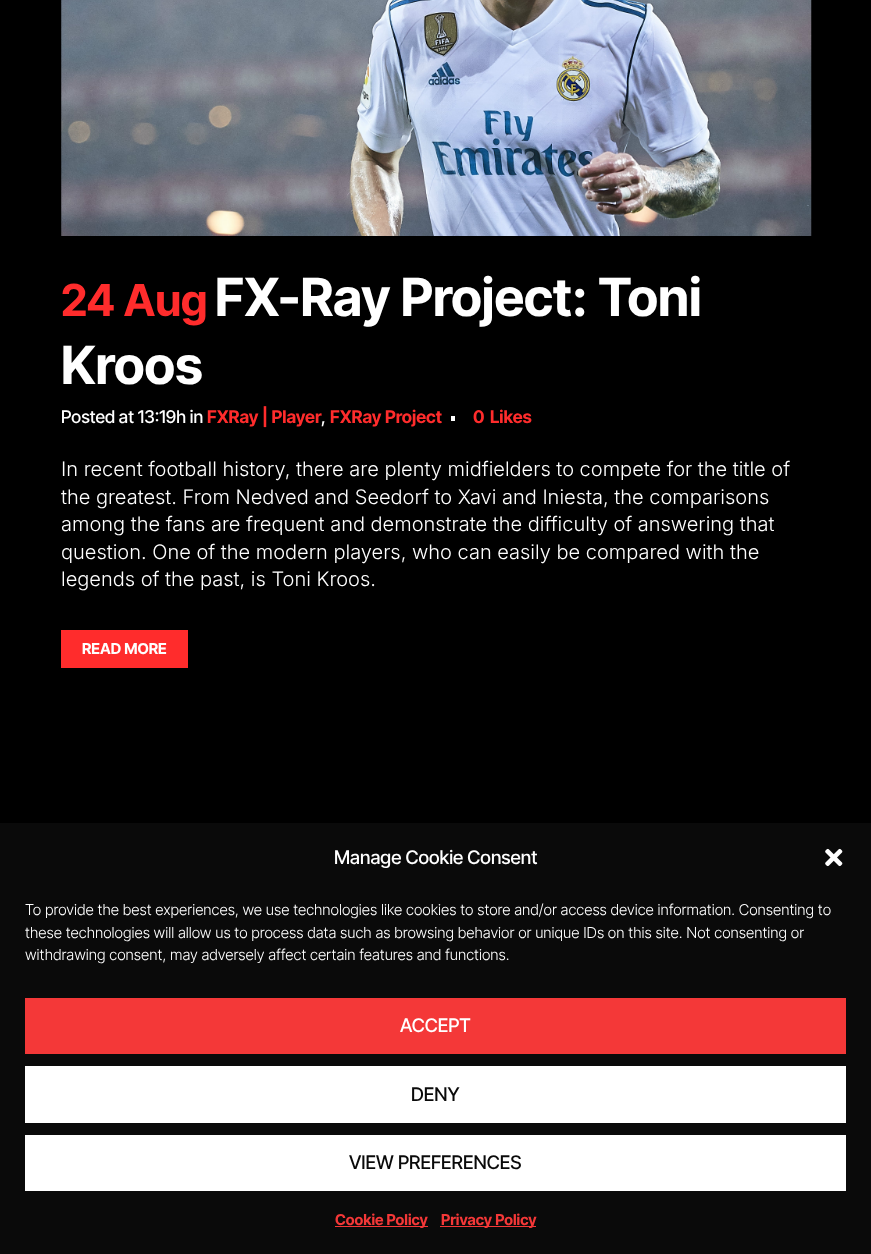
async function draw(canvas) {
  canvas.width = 871;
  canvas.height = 1254;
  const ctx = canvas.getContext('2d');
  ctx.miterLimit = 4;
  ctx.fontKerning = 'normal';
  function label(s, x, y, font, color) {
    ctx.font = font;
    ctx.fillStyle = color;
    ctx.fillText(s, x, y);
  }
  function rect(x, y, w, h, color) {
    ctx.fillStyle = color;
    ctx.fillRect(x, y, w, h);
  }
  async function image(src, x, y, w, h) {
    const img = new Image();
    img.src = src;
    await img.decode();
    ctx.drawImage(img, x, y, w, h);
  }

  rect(0, 0, 871, 1254, '#000');
  await image('assets/img1.png', 61, 0, 751, 236);
  label('24 Aug', 61, 316, 'bold 44px Inter Tight', '#ff2c2c');
  label('FX-Ray Project: Toni', 215, 316, 'bold 52.5px Inter Tight', '#fff');
  label('Kroos', 61, 384, 'bold 52.5px Inter Tight', '#fff');
  label('Posted at 13:19h in', 61, 423, '500 17.5px Inter Tight', '#fff');
  label('FXRay | Player', 207, 423, 'bold 17.5px Inter Tight', '#ff2c2c');
  label('FXRay Project', 330, 423, 'bold 17.5px Inter Tight', '#ff2c2c');
  rect(451, 416, 4, 5, '#fff');
  label('0', 473, 423, 'bold 17.5px Inter Tight', '#ff2c2c');
  label('Likes', 490, 423, 'bold 17.5px Inter Tight', '#ff2c2c');
  label(',', 321, 423, '500 17.5px Inter Tight', '#fff');
  label('In recent football history, there are plenty midfielders to compete for the title of', 61, 476, '300 20px Inter', '#fff');
  label('the greatest. From Nedved and Seedorf to Xavi and Iniesta, the comparisons', 61, 504, '300 20px Inter', '#fff');
  label('among the fans are frequent and demonstrate the difficulty of answering that', 61, 531, '300 20px Inter', '#fff');
  label('question. One of the modern players, who can easily be compared with the', 61, 559, '300 20px Inter', '#fff');
  label('legends of the past, is Toni Kroos.', 61, 586, '300 20px Inter', '#fff');
  rect(61, 630, 127, 38, '#ff2c2c');
  label('READ MORE', 82, 654, 'bold 15px Inter Tight', '#fff');
  rect(0, 823, 871, 431, '#0a0a0a');
  label('Manage Cookie Consent', 334, 864, '500 18.75px Inter Tight', '#fff');
  await image('assets/img2.png', 825, 848, 18, 19);
  label('To provide the best experiences, we use technologies like cookies to store and/or access device information. Consenting to', 25, 915, '300 15px Inter Tight', '#fff');
  label('these technologies will allow us to process data such as browsing behavior or unique IDs on this site. Not consenting or', 25, 938, '300 15px Inter Tight', '#fff');
  label('withdrawing consent, may adversely affect certain features and functions.', 25, 960, '300 15px Inter Tight', '#fff');
  rect(25, 998, 821, 56, '#f43838');
  label('ACCEPT', 400, 1032, '500 18.75px Inter Tight', '#fff');
  rect(25, 1066, 821, 57, '#fff');
  label('DENY', 411, 1101, '500 18.75px Inter Tight', '#0a0a0a');
  rect(25, 1135, 821, 56, '#fff');
  label('VIEW PREFERENCES', 349, 1169, '500 18.75px Inter Tight', '#0a0a0a');
  rect(335, 1226, 93, 1, '#f43838');
  label('Cookie Policy', 335, 1225, 'bold 15px Inter Tight', '#f43838');
  rect(440, 1226, 96, 1, '#f43838');
  label('Privacy Policy', 441, 1225, 'bold 15px Inter Tight', '#f43838');
}

draw(document.querySelector('canvas'));
